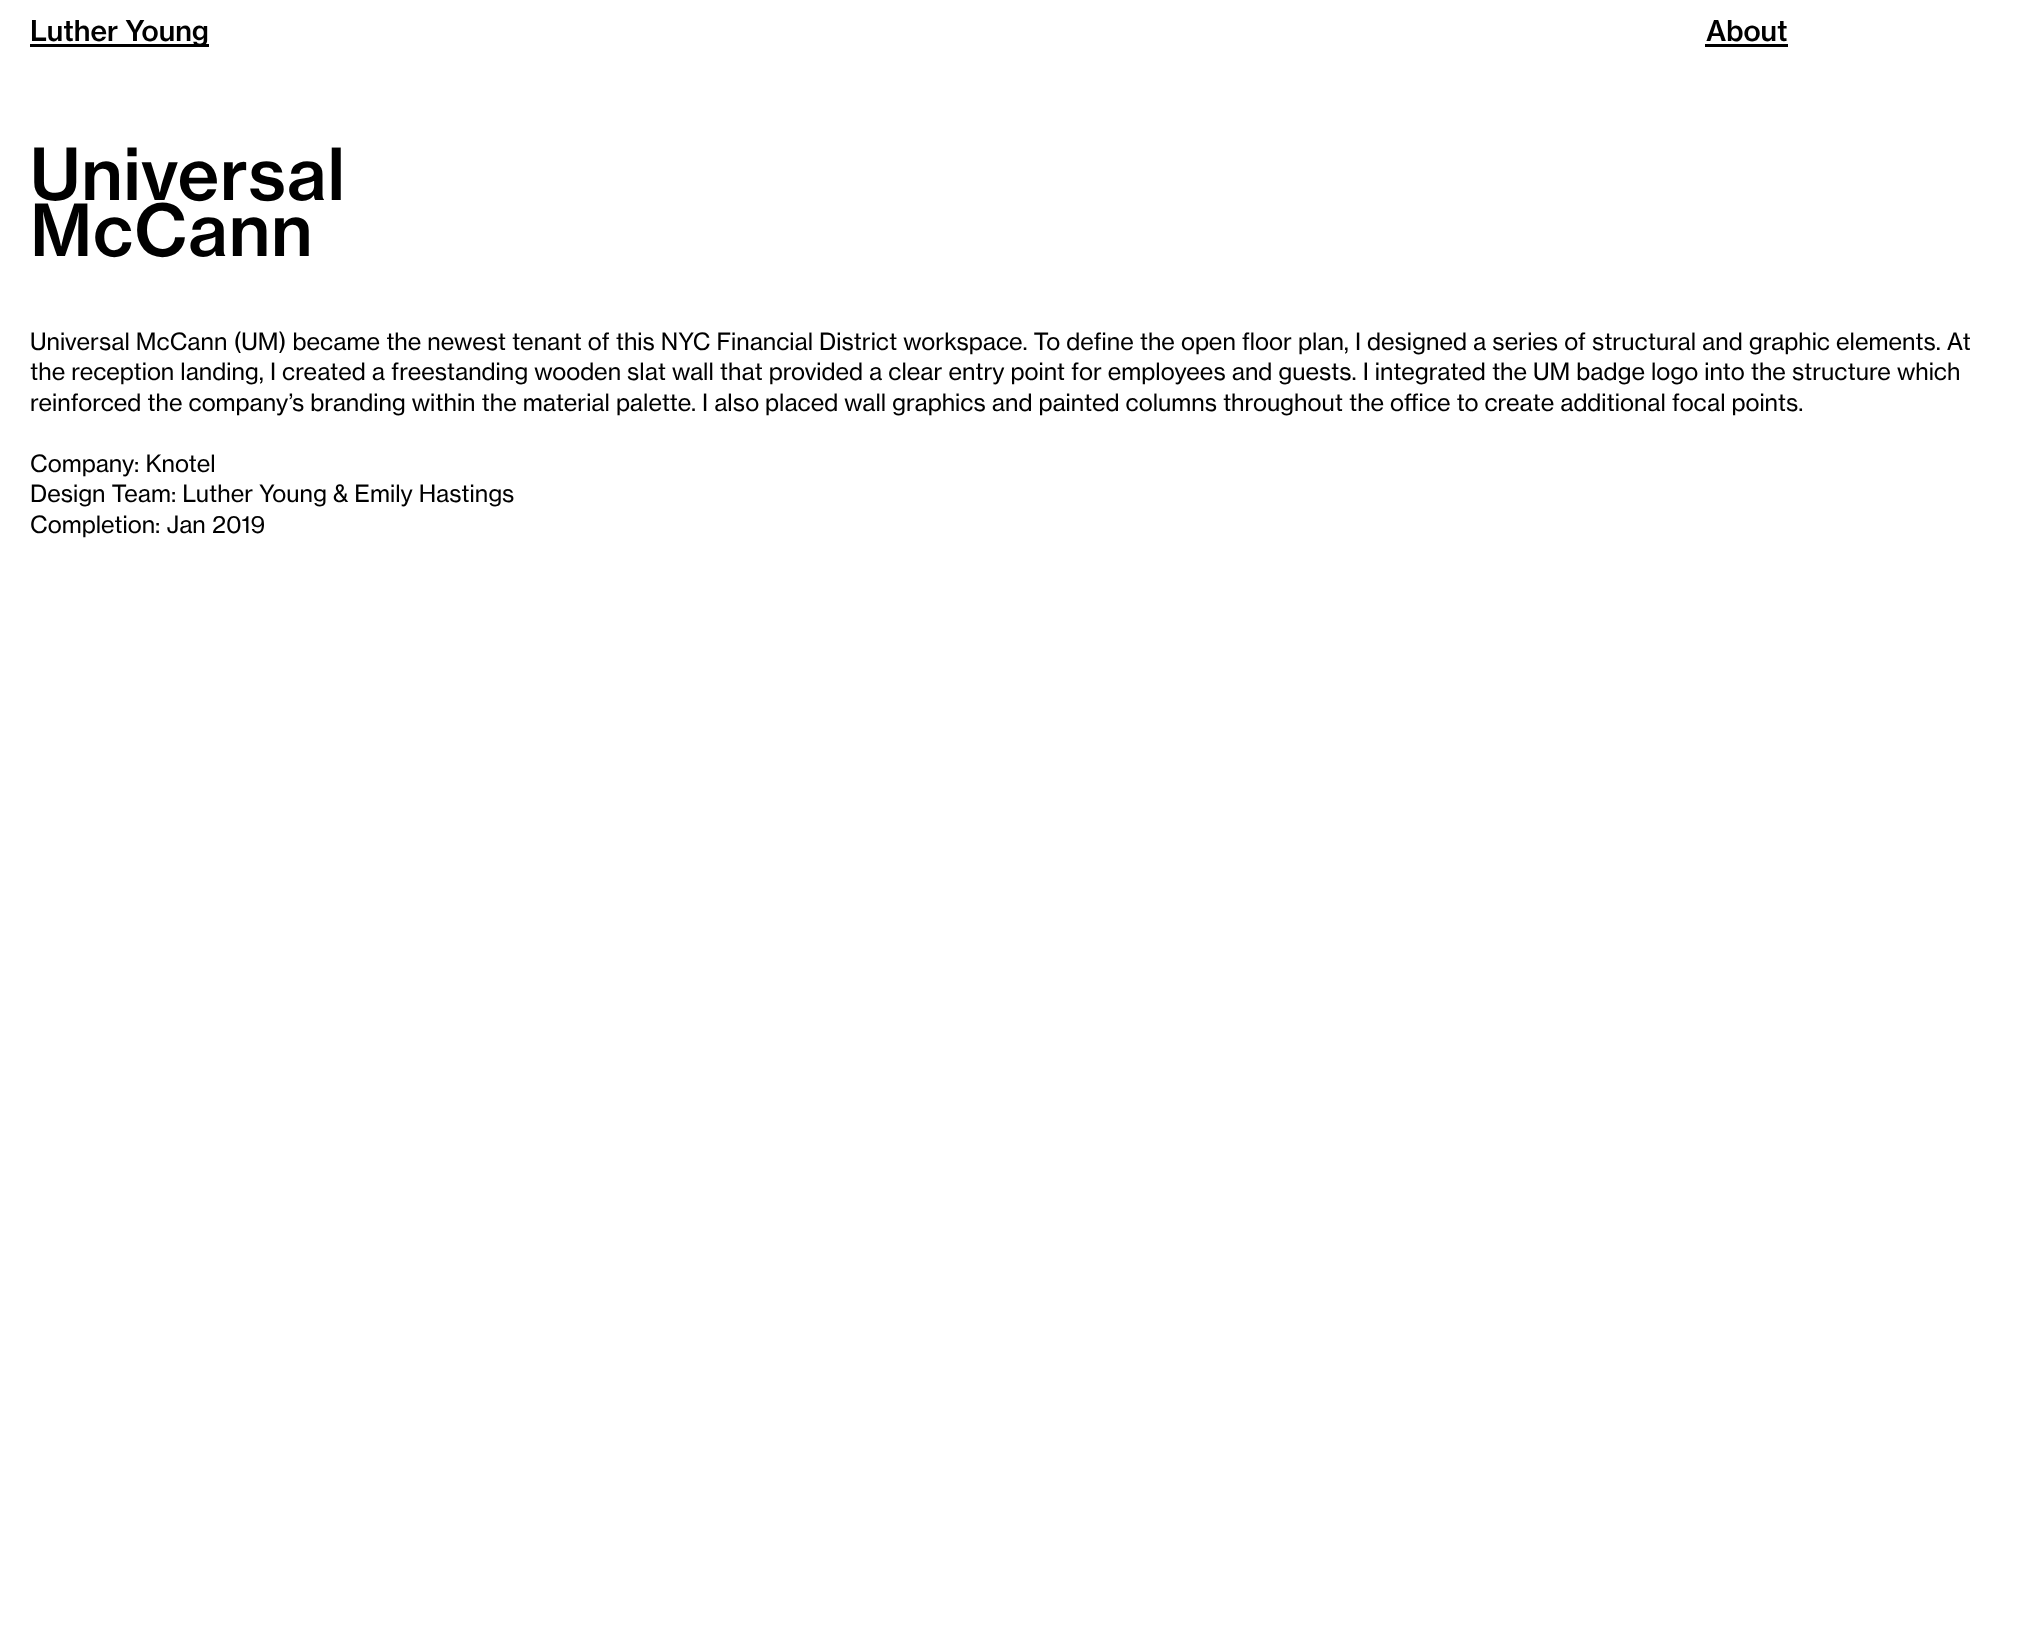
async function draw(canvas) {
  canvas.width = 2035;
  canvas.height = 1630;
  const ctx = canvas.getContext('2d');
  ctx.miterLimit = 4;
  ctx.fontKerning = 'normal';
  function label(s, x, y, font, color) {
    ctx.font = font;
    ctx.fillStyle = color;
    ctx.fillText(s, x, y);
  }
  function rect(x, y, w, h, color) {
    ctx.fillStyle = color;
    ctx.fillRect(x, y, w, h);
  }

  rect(0, 0, 2035, 1630, '#fff');
  rect(30, 44, 179, 3, '#000');
  label('Luther Young', 30, 41, '500 28.25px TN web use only', '#000');
  label('About', 1706, 41, '500 28.25px TN web use only', '#000');
  rect(1705, 44, 83, 3, '#000');
  ctx.letterSpacing = '0.75px';
  label('Universal', 30, 200, '500 70.5px TN web use only', '#000');
  label('McCann', 30, 256, '500 70.5px TN web use only', '#000');
  ctx.letterSpacing = '0px';
  ctx.wordSpacing = '-0.2px';
  label('Universal McCann (UM) became the newest tenant of this NYC Financial District workspace. To define the open floor plan, I designed a series of structural and graphic elements. At', 30, 350, '23.48px TN web use only', '#000');
  label('the reception landing, I created a freestanding wooden slat wall that provided a clear entry point for employees and guests. I integrated the UM badge logo into the structure which', 30, 380, '23.48px TN web use only', '#000');
  ctx.wordSpacing = '-0.25px';
  label('reinforced the company’s branding within the material palette. I also placed wall graphics and painted columns throughout the office to create additional focal points.', 30, 411, '23.48px TN web use only', '#000');
  ctx.wordSpacing = '0px';
  label('Company: Knotel', 30, 472, '23.48px TN web use only', '#000');
  ctx.wordSpacing = '-0.25px';
  label('Design Team: Luther Young & Emily Hastings', 30, 502, '23.48px TN web use only', '#000');
  ctx.wordSpacing = '0px';
  label('Completion: Jan 2019', 30, 533, '23.48px TN web use only', '#000');
}

draw(document.querySelector('canvas'));
